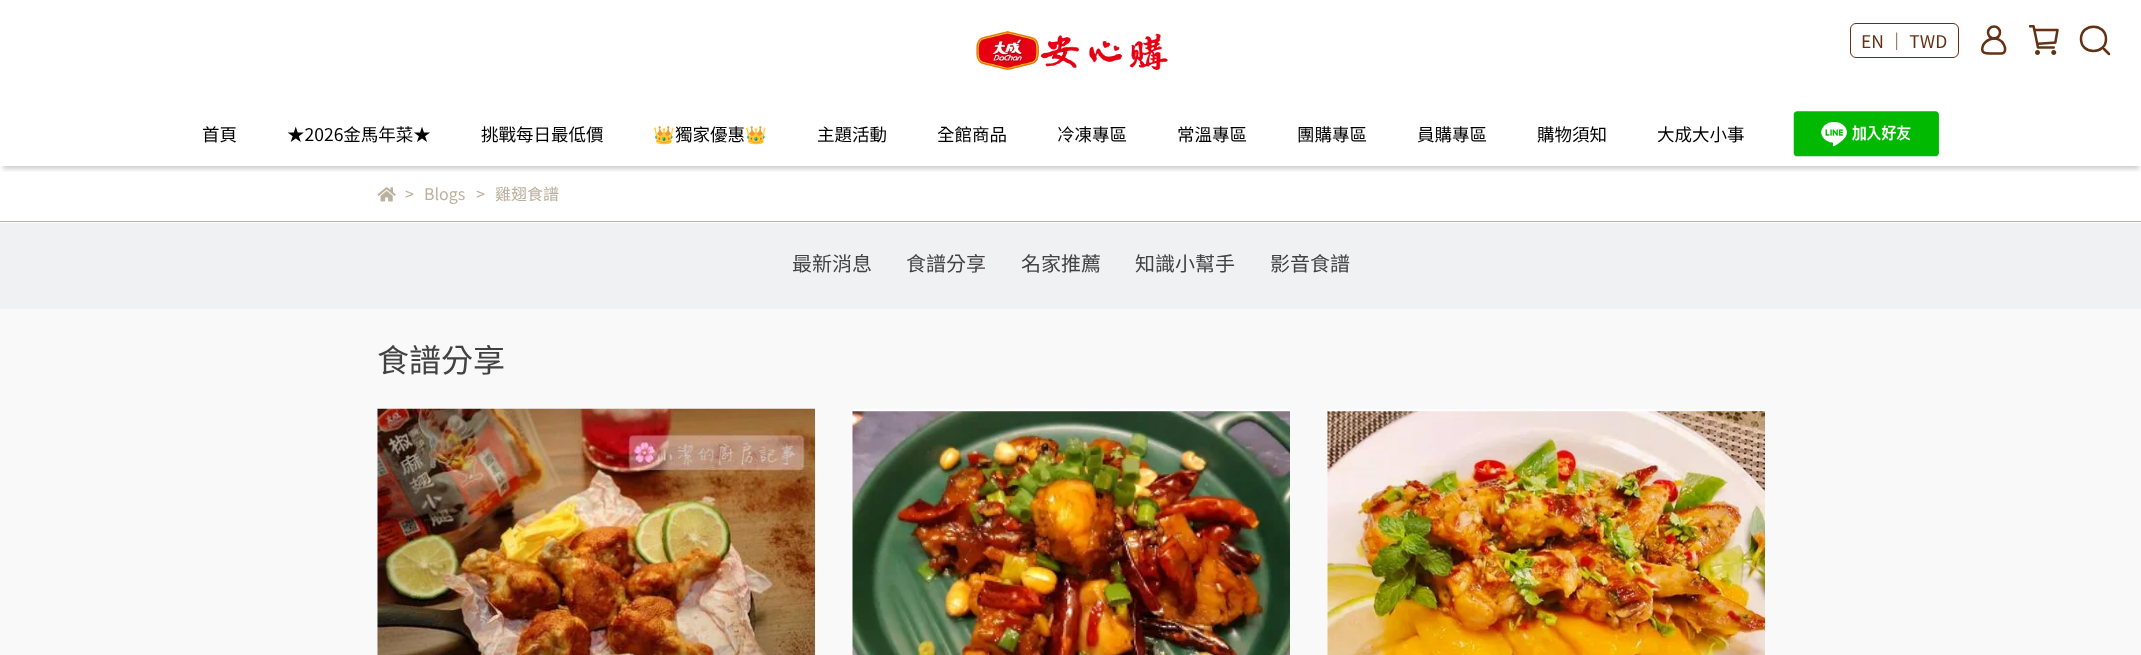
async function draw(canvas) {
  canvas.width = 2141;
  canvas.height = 655;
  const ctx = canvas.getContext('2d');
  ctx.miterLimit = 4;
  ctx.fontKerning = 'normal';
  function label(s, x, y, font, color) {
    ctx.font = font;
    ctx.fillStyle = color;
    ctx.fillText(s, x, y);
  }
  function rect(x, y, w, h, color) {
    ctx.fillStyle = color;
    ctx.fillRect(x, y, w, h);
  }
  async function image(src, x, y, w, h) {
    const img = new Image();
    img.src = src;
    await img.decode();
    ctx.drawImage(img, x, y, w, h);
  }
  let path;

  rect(0, 0, 2141, 655, '#fff');
  await image('assets/img1.png', 976, 31, 192, 39);
  ctx.beginPath();
  ctx.roundRect(1850.5, 23.5, 108, 34, 5.5);
  ctx.strokeStyle = '#643114';
  ctx.stroke();
  label('EN ｜ TWD', 1861, 48, '17.5px Noto Sans TC', '#643114');
  ctx.beginPath();
  ctx.arc(1994, 32.5, 6, 0, 2 * Math.PI);
  ctx.lineWidth = 2.5;
  ctx.stroke();
  path = new Path2D('M2001 53.5H1991.5C1986 53.5 1981 54 1982.5 47C1983.5 43.5 1986 41 1989.5 39.5C2003.5 34 2010 54 2001 53.5Z');
  ctx.stroke(path);
  await image('assets/img2.png', 2029, 25, 30, 30);
  path = new Path2D('M2106 39C2106 55 2081 55 2081 39C2081 22.5 2106 22.5 2106 39ZM2104 49L2109 54');
  ctx.lineCap = 'round';
  ctx.lineJoin = 'round';
  ctx.stroke(path);
  ctx.save();
  ctx.beginPath();
  ctx.rect(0, 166, 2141, 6);
  ctx.clip();
  ctx.fillStyle = '#00000033';
  ctx.filter = 'blur(2.5px)';
  ctx.beginPath();
  ctx.rect(3, 109, 2136, 60);
  ctx.fill();
  ctx.filter = 'none';
  ctx.restore();
  label('首頁', 202, 141, '17.5px Noto Sans TC', '#000');
  label('★2026金馬年菜★', 287, 141, '17.5px Noto Sans TC', '#000');
  label('挑戰每日最低價', 481, 141, '17.5px Noto Sans TC', '#000');
  label('👑', 653, 141, '17.5px Noto Color Emoji', '#000');
  label('獨家優惠', 675, 141, '17.5px Noto Sans TC', '#000');
  label('👑', 745, 141, '17.5px Noto Color Emoji', '#000');
  label('主題活動', 817, 141, '17.5px Noto Sans TC', '#000');
  label('全館商品', 937, 141, '17.5px Noto Sans TC', '#000');
  label('冷凍專區', 1057, 141, '17.5px Noto Sans TC', '#000');
  label('常溫專區', 1177, 141, '17.5px Noto Sans TC', '#000');
  label('團購專區', 1297, 141, '17.5px Noto Sans TC', '#000');
  label('員購專區', 1417, 141, '17.5px Noto Sans TC', '#000');
  label('購物須知', 1537, 141, '17.5px Noto Sans TC', '#000');
  label('大成大小事', 1657, 141, '17.5px Noto Sans TC', '#000');
  await image('assets/img3.png', 1793, 111, 146, 46);
  rect(0, 221, 2141, 1, '#bbb19e');
  await image('assets/img4.png', 377, 187, 19, 15);
  label('>', 405, 200, '16px Noto Sans TC', '#bbb19e');
  label('Blogs', 424, 200, '16px Noto Sans TC', '#bbb19e');
  label('>', 476, 200, '16px Noto Sans TC', '#bbb19e');
  label('雞翅食譜', 495, 200, '16px Noto Sans TC', '#bbb19e');
  rect(0, 309, 2141, 346, '#f9f9f9');
  rect(0, 223, 2141, 86, '#f0f1f3');
  label('最新消息', 792, 271, '20px Noto Sans TC', '#424242');
  label('食譜分享', 906, 271, '20px Noto Sans TC', '#424242');
  label('名家推薦', 1021, 271, '20px Noto Sans TC', '#424242');
  label('知識小幫手', 1135, 271, '20px Noto Sans TC', '#424242');
  label('影音食譜', 1270, 271, '20px Noto Sans TC', '#424242');
  label('食譜分享', 377, 372, '32px Noto Sans TC', '#424242');
  await image('assets/img5.png', 377, 408, 438, 247);
  rect(853, 409, 437, 3, '#fff');
  await image('assets/img6.png', 852, 411, 438, 244);
  rect(1328, 409, 437, 3, '#fff');
  await image('assets/img7.png', 1327, 411, 438, 244);
}

draw(document.querySelector('canvas'));
